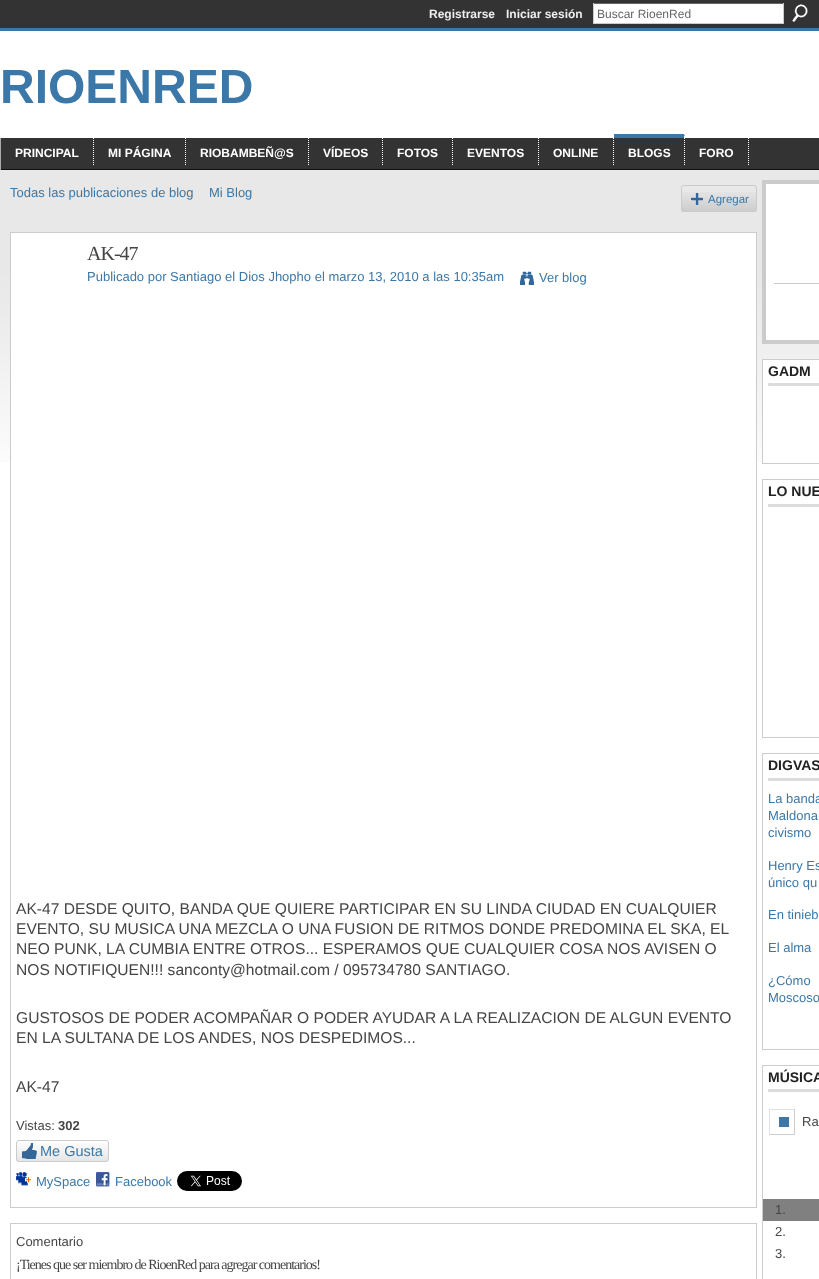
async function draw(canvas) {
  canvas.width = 819;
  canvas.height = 1279;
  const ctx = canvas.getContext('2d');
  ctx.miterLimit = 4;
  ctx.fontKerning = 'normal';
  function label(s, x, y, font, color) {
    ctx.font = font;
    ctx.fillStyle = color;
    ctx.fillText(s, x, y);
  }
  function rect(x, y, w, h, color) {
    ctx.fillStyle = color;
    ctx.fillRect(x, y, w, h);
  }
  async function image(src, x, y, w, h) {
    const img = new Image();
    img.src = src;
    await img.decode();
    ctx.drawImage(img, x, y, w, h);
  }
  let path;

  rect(0, 0, 819, 1279, '#fff');
  rect(0, 0, 819, 28, '#333');
  label('Registrarse', 429, 18, 'bold 12px Liberation Sans', '#eee');
  label('Iniciar sesión', 506, 18, 'bold 12px Liberation Sans', '#eee');
  rect(594, 4, 189, 19, '#fff');
  rect(593, 3, 191, 1, '#666');
  rect(783, 3, 1, 21, '#ccc');
  rect(593, 23, 191, 1, '#ccc');
  rect(593, 3, 1, 21, '#ccc');
  label('Buscar RioenRed', 597, 18, '12px Liberation Sans', '#666');
  await image('assets/img1.png', 792, 4, 16, 18);
  rect(0, 28, 819, 3, '#3c78a7');
  label('RIOENRED', 0, 103, 'bold 48px Liberation Sans', '#3c78a7');
  rect(1, 138, 818, 31, '#333');
  rect(0, 169, 819, 1, '#111');
  rect(0, 138, 1, 32, '#aaa');
  path = new Path2D('M93.5 134V165');
  ctx.strokeStyle = '#fff';
  ctx.setLineDash([1, 1]);
  ctx.stroke(path);
  label('PRINCIPAL', 15, 157, 'bold 12px Liberation Sans', '#fff');
  path = new Path2D('M185.5 134V165');
  ctx.stroke(path);
  label('MI PÁGINA', 108, 157, 'bold 12px Liberation Sans', '#fff');
  path = new Path2D('M308.5 134V165');
  ctx.stroke(path);
  label('RIOBAMBEÑ@S', 200, 157, 'bold 12px Liberation Sans', '#fff');
  path = new Path2D('M382.5 134V165');
  ctx.stroke(path);
  label('VÍDEOS', 323, 157, 'bold 12px Liberation Sans', '#fff');
  path = new Path2D('M452.5 134V165');
  ctx.stroke(path);
  label('FOTOS', 397, 157, 'bold 12px Liberation Sans', '#fff');
  path = new Path2D('M538.5 134V165');
  ctx.stroke(path);
  label('EVENTOS', 467, 157, 'bold 12px Liberation Sans', '#fff');
  path = new Path2D('M613.5 134V165');
  ctx.stroke(path);
  label('ONLINE', 553, 157, 'bold 12px Liberation Sans', '#fff');
  ctx.fillStyle = '#3c78a7';
  path = new Path2D('M614 134H685L684 138H614Z');
  ctx.fill(path);
  path = new Path2D('M684.5 134V165');
  ctx.stroke(path);
  label('BLOGS', 628, 157, 'bold 12px Liberation Sans', '#fff');
  path = new Path2D('M748.5 134V165');
  ctx.stroke(path);
  label('FORO', 699, 157, 'bold 12px Liberation Sans', '#fff');
  await image('assets/img2.png', 0, 170, 819, 292);
  label('Todas las publicaciones de blog', 10, 197, '13px Liberation Sans', '#3c78a7');
  label('Mi Blog', 209, 197, '13px Liberation Sans', '#3c78a7');
  await image('assets/img3.png', 681, 192, 76, 20);
  ctx.beginPath();
  ctx.roundRect(681.5, 185.5, 75, 26, 2.5);
  ctx.strokeStyle = '#cbcbcb';
  ctx.setLineDash([]);
  ctx.stroke();
  await image('assets/img4.png', 691, 193, 12, 12);
  label('Agregar', 708, 203, '11.5px Liberation Sans', '#3c78a7');
  rect(11, 233, 745, 229, '#fff');
  ctx.strokeStyle = '#ccc';
  ctx.strokeRect(10.5, 232.5, 746, 975);
  ctx.letterSpacing = '-1px';
  label('AK-47', 87, 260, '20px Liberation Serif', '#454545');
  ctx.letterSpacing = '0px';
  label('Publicado por Santiago el Dios Jhopho el marzo 13, 2010 a las 10:35am', 87, 281, '13px Liberation Sans', '#3c78a7');
  await image('assets/img5.png', 520, 271, 14, 14);
  label('Ver blog', 539, 282, '13px Liberation Sans', '#3c78a7');
  label('AK-47 DESDE QUITO, BANDA QUE QUIERE PARTICIPAR EN SU LINDA CIUDAD EN CUALQUIER', 16, 914, '15.6px Liberation Sans', '#454545');
  label('EVENTO, SU MUSICA UNA MEZCLA O UNA FUSION DE RITMOS DONDE PREDOMINA EL SKA, EL', 16, 934, '15.6px Liberation Sans', '#454545');
  label('NEO PUNK, LA CUMBIA ENTRE OTROS... ESPERAMOS QUE CUALQUIER COSA NOS AVISEN O', 16, 954, '15.6px Liberation Sans', '#454545');
  label('NOS NOTIFIQUEN!!! sanconty@hotmail.com / 095734780 SANTIAGO.', 16, 975, '15.6px Liberation Sans', '#454545');
  label('GUSTOSOS DE PODER ACOMPAÑAR O PODER AYUDAR A LA REALIZACION DE ALGUN EVENTO', 16, 1023, '15.6px Liberation Sans', '#454545');
  label('EN LA SULTANA DE LOS ANDES, NOS DESPEDIMOS...', 16, 1043, '15.6px Liberation Sans', '#454545');
  label('AK-47', 16, 1092, '15.6px Liberation Sans', '#454545');
  label('Vistas:', 16, 1130, '13px Liberation Sans', '#454545');
  label('302', 58, 1130, 'bold 13px Liberation Sans', '#454545');
  await image('assets/img6.png', 16, 1143, 93, 19);
  ctx.beginPath();
  ctx.roundRect(16.5, 1140.5, 92, 21, 2.5);
  ctx.strokeStyle = '#cbcbcb';
  ctx.stroke();
  await image('assets/img7.png', 22, 1143, 15, 16);
  label('Me Gusta', 40, 1156, '14.5px Liberation Sans', '#3c78a7');
  await image('assets/img8.png', 16, 1172, 15, 14);
  label('MySpace', 36, 1186, '13px Liberation Sans', '#3c78a7');
  await image('assets/img9.png', 96, 1172, 14, 15);
  label('Facebook', 115, 1186, '13px Liberation Sans', '#3c78a7');
  await image('assets/img10.png', 177, 1171, 65, 20);
  ctx.strokeStyle = '#ccc';
  ctx.strokeRect(10.5, 1223.5, 746, 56);
  label('Comentario', 16, 1246, '13px Liberation Sans', '#454545');
  ctx.letterSpacing = '-1px';
  label('¡Tienes que ser miembro de RioenRed para agregar comentarios!', 16, 1269, '14px Liberation Serif', '#454545');
  rect(766, 184, 53, 156, '#fff');
  ctx.strokeRect(762.5, 180.5, 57, 163);
  ctx.strokeStyle = '#cbcbcb';
  ctx.lineWidth = 3;
  ctx.strokeRect(764.5, 182.5, 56, 159);
  rect(774, 283, 45, 1, '#cbcbcb');
  rect(763, 360, 56, 102, '#fff');
  ctx.strokeStyle = '#ccc';
  ctx.lineWidth = 1;
  ctx.strokeRect(762.5, 359.5, 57, 104);
  rect(768, 383, 51, 3, '#dcdcdc');
  ctx.letterSpacing = '0px';
  label('GADM', 768, 376, 'bold 14px Liberation Sans', '#222');
  ctx.strokeRect(762.5, 479.5, 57, 258);
  rect(768, 504, 51, 3, '#dcdcdc');
  label('LO NUE', 768, 496, 'bold 14px Liberation Sans', '#222');
  ctx.strokeRect(762.5, 753.5, 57, 296);
  rect(768, 778, 51, 3, '#dcdcdc');
  label('DIGVAS', 768, 770, 'bold 14px Liberation Sans', '#222');
  label('La banda', 768, 803, '13px Liberation Sans', '#3c78a7');
  label('Maldona', 768, 820, '13px Liberation Sans', '#3c78a7');
  label('civismo', 768, 837, '13px Liberation Sans', '#3c78a7');
  label('Henry Es', 768, 870, '13px Liberation Sans', '#3c78a7');
  label('único qu', 768, 887, '13px Liberation Sans', '#3c78a7');
  label('En tinieb', 768, 919, '13px Liberation Sans', '#3c78a7');
  label('El alma', 768, 952, '13px Liberation Sans', '#3c78a7');
  label('¿Cómo', 768, 985, '13px Liberation Sans', '#3c78a7');
  label('Moscoso', 768, 1002, '13px Liberation Sans', '#3c78a7');
  ctx.strokeRect(762.5, 1065.5, 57, 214);
  rect(768, 1089, 51, 3, '#dcdcdc');
  label('MÚSICA', 768, 1082, 'bold 14px Liberation Sans', '#222');
  rect(769, 1109, 26, 1, '#e1e1e1');
  rect(794, 1109, 1, 26, '#ccc');
  rect(769, 1134, 26, 1, '#ccc');
  rect(769, 1109, 1, 26, '#e1e1e1');
  rect(779, 1117, 10, 10, '#3c78a7');
  label('Ra', 802, 1126, '13px Liberation Sans', '#454545');
  rect(763, 1199, 56, 22, '#808080');
  label('1.', 775, 1214, '13px Liberation Sans', '#454545');
  label('2.', 775, 1236, '13px Liberation Sans', '#454545');
  label('3.', 775, 1258, '13px Liberation Sans', '#454545');
}

draw(document.querySelector('canvas'));
